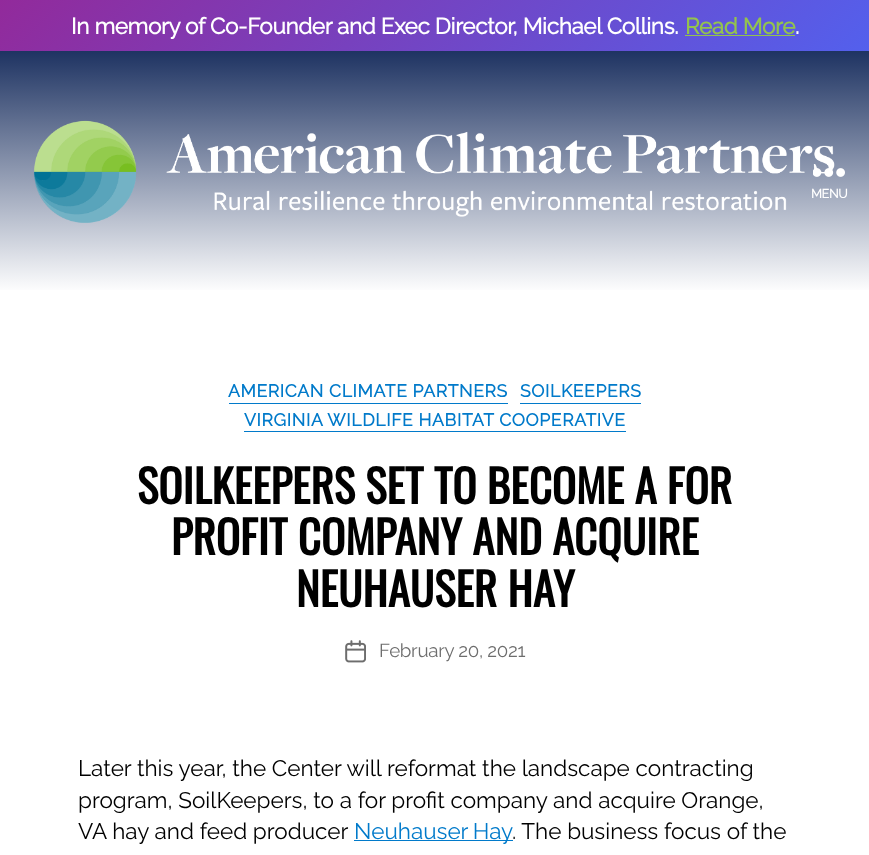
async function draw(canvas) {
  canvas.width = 869;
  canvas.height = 855;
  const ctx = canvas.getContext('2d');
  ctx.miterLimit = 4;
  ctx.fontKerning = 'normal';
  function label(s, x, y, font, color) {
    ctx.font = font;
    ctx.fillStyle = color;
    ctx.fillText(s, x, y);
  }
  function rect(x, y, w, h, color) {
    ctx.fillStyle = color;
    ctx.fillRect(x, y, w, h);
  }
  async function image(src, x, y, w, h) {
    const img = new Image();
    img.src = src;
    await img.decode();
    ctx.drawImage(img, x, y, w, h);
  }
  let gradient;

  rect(0, 0, 869, 855, '#fff');
  gradient = ctx.createLinearGradient(205, -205, 665, 256);
  gradient.addColorStop(0, '#922a9b');
  gradient.addColorStop(1, '#5360ed');
  ctx.fillStyle = gradient;
  ctx.fillRect(0, 0, 869, 51);
  ctx.letterSpacing = '-0.35px';
  label('In memory of Co-Founder and Exec Director, Michael Collins.', 71, 34, 'bold 22.5px Raleway', '#fff');
  label('Read More', 685, 34, 'bold 22.5px Raleway', '#93c24f');
  label('.', 795, 34, 'bold 22.5px Raleway', '#fff');
  rect(685, 35, 110, 1, '#93c24f');
  gradient = ctx.createLinearGradient(435, 51, 435, 293);
  gradient.addColorStop(0, '#1e3362');
  gradient.addColorStop(1, '#fff');
  ctx.fillStyle = gradient;
  ctx.fillRect(0, 51, 869, 239);
  await image('assets/img1.png', 33, 120, 802, 103);
  await image('assets/img2.png', 813, 168, 32, 9);
  label('MENU', 811, 198, 'bold 12.5px Raleway', '#fff');
  rect(229, 403, 279, 1, '#017aca');
  ctx.letterSpacing = '0.65px';
  label('AMERICAN CLIMATE PARTNERS', 228, 397, 'bold 17.5px Raleway', '#017aca');
  rect(520, 403, 121, 1, '#017aca');
  label('SOILKEEPERS', 520, 397, 'bold 17.5px Raleway', '#017aca');
  rect(244, 431, 382, 1, '#017aca');
  label('VIRGINIA WILDLIFE HABITAT COOPERATIVE', 244, 426, 'bold 17.5px Raleway', '#017aca');
  ctx.letterSpacing = '0px';
  label('SOILKEEPERS SET TO BECOME A FOR', 137, 504, 'bold 45px Oswald', '#000');
  label('PROFIT COMPANY AND ACQUIRE', 171, 555, 'bold 45px Oswald', '#000');
  label('NEUHAUSER HAY', 296, 607, 'bold 45px Oswald', '#000');
  await image('assets/img3.png', 345, 640, 21, 23);
  ctx.letterSpacing = '-0.3px';
  label('February 20, 2021', 379, 657, '100 18.75px Raleway', '#6d6d6d');
  ctx.letterSpacing = '0px';
  label('Later this year, the Center will reformat the landscape contracting', 78, 776, '100 22.5px Raleway', '#000');
  label('program, SoilKeepers, to a for profit company and acquire Orange,', 78, 808, '100 22.5px Raleway', '#000');
  label('VA hay and feed producer', 78, 839, '100 22.5px Raleway', '#000');
  rect(354, 840, 159, 1, '#017aca');
  ctx.wordSpacing = '-1px';
  label('Neuhauser Hay', 354, 839, '100 22.5px Raleway', '#017aca');
  ctx.wordSpacing = '0px';
  label('. The business focus of the', 512, 839, '100 22.5px Raleway', '#000');
}

draw(document.querySelector('canvas'));
